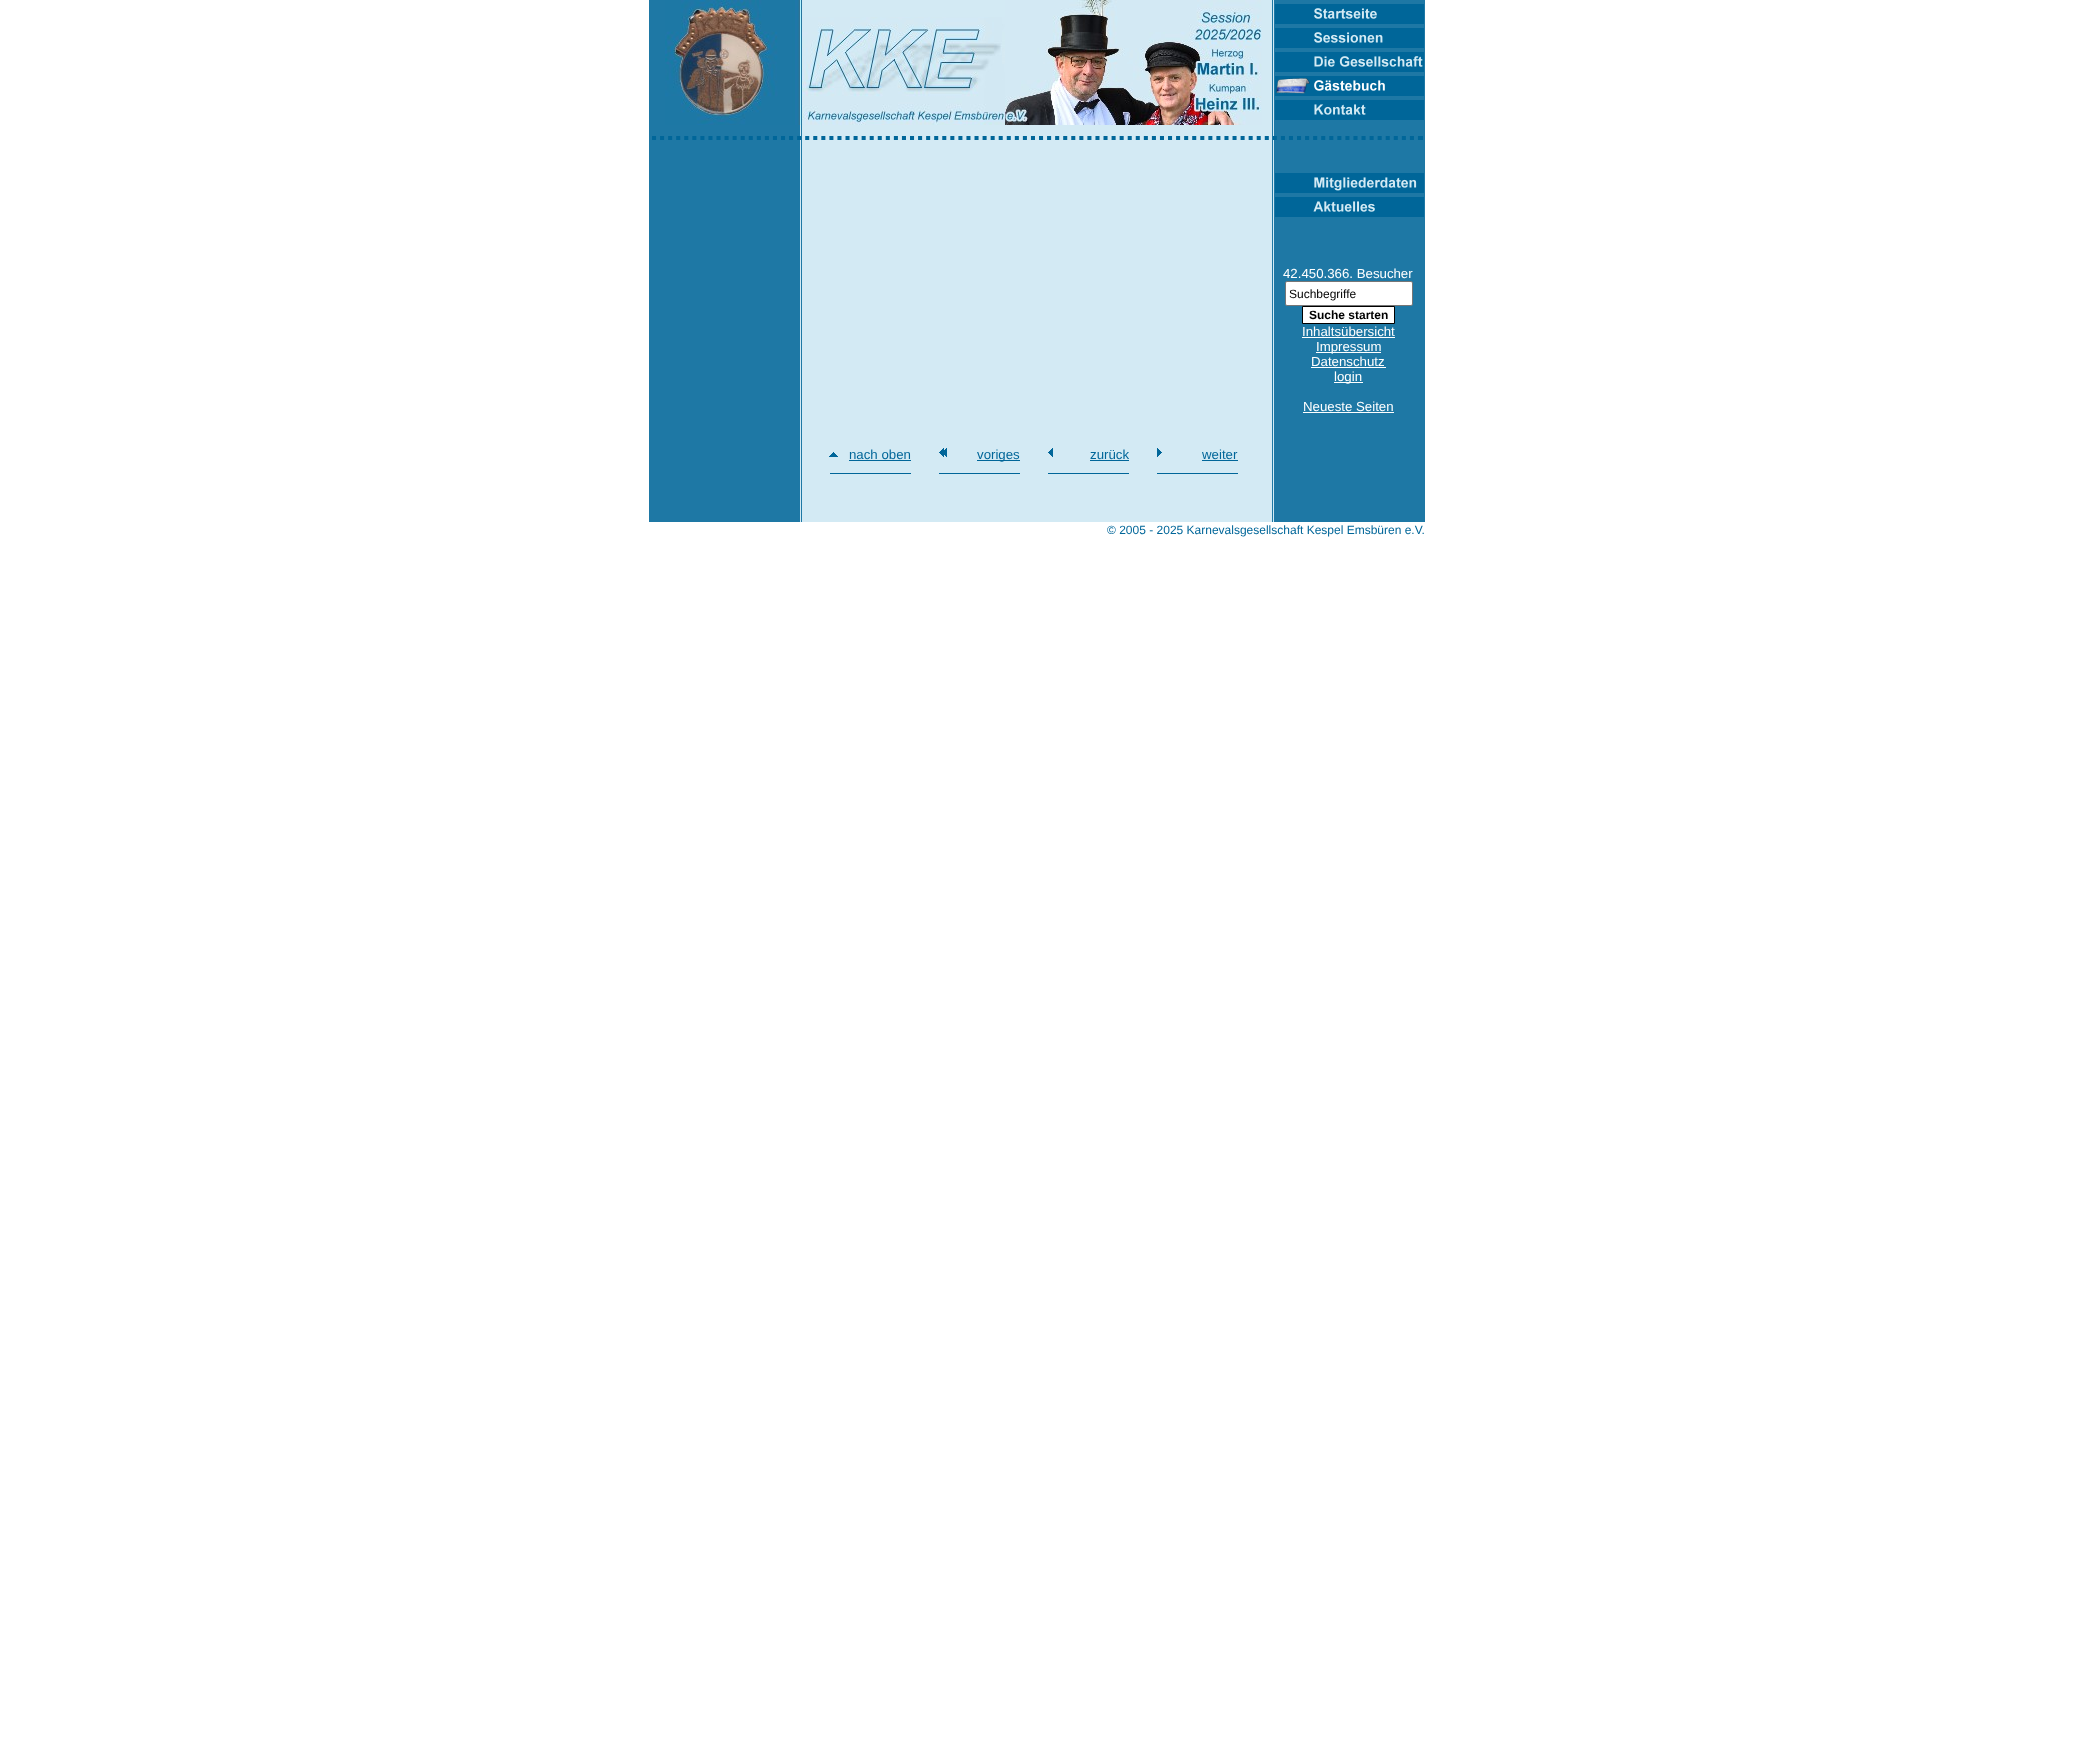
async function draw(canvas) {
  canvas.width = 2074;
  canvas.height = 1742;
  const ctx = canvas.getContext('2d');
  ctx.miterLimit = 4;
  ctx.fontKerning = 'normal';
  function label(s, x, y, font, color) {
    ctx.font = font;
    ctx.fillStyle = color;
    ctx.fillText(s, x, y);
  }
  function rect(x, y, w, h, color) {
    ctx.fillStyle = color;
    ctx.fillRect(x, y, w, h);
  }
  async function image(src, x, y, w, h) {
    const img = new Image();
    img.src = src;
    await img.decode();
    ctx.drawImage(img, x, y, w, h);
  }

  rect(0, 0, 2074, 1742, '#fff');
  await image('assets/img1.png', 649, 0, 776, 522);
  await image('assets/img2.png', 665, 0, 137, 125);
  await image('assets/img3.png', 802, 17, 203, 108);
  await image('assets/img4.png', 1005, 0, 257, 125);
  await image('assets/img5.png', 1275, 4, 149, 20);
  await image('assets/img6.png', 1275, 28, 149, 20);
  await image('assets/img7.png', 1275, 52, 149, 20);
  await image('assets/img8.png', 1275, 76, 149, 20);
  await image('assets/img9.png', 1275, 100, 149, 20);
  await image('assets/img10.png', 652, 136, 771, 4);
  await image('assets/img11.png', 1275, 173, 149, 20);
  await image('assets/img12.png', 1275, 197, 149, 20);
  label('42.450.366. Besucher', 1283, 278, '13.25px Liberation Sans', '#fff');
  ctx.beginPath();
  ctx.roundRect(1285.5, 281.5, 127, 24, 1.5);
  ctx.fill();
  ctx.strokeStyle = '#767676';
  ctx.stroke();
  label('Suchbegriffe', 1289, 298, '12px Liberation Sans', '#000');
  ctx.fillStyle = '#fff';
  ctx.beginPath();
  ctx.rect(1302.5, 306.5, 92, 17);
  ctx.fill();
  ctx.strokeStyle = '#000';
  ctx.stroke();
  label('Suche starten', 1309, 319, 'bold 12px Liberation Sans', '#000');
  label('Inhaltsübersicht', 1302, 336, '13.25px Liberation Sans', '#fff');
  rect(1302, 337, 93, 1, '#fff');
  rect(1316, 352, 65, 1, '#fff');
  label('Impressum', 1316, 351, '13.25px Liberation Sans', '#fff');
  label('Datenschutz', 1311, 366, '13.25px Liberation Sans', '#fff');
  rect(1311, 367, 75, 1, '#fff');
  rect(1334, 382, 29, 1, '#fff');
  label('login', 1334, 381, '13.25px Liberation Sans', '#fff');
  label('Neueste Seiten', 1303, 411, '13.25px Liberation Sans', '#fff');
  rect(1303, 412, 91, 1, '#fff');
  await image('assets/img13.png', 829, 452, 9, 5);
  label('nach oben', 849, 459, '13.25px Liberation Sans', '#069');
  rect(849, 460, 62, 1, '#069');
  await image('assets/img14.png', 939, 448, 8, 9);
  rect(977, 460, 43, 1, '#069');
  label('voriges', 977, 459, '13.25px Liberation Sans', '#069');
  await image('assets/img15.png', 1048, 448, 5, 9);
  label('zurück', 1090, 459, '13.25px Liberation Sans', '#069');
  rect(1090, 460, 39, 1, '#069');
  await image('assets/img16.png', 1157, 448, 5, 9);
  label('weiter', 1202, 459, '13.25px Liberation Sans', '#069');
  rect(1202, 460, 36, 1, '#069');
  rect(830, 473, 81, 1, '#069');
  rect(939, 473, 81, 1, '#069');
  rect(1048, 473, 81, 1, '#069');
  rect(1157, 473, 81, 1, '#069');
  label('© 2005 - 2025 Karnevalsgesellschaft Kespel Emsbüren e.V.', 1107, 534, '12px Liberation Sans', '#069');
}

draw(document.querySelector('canvas'));
